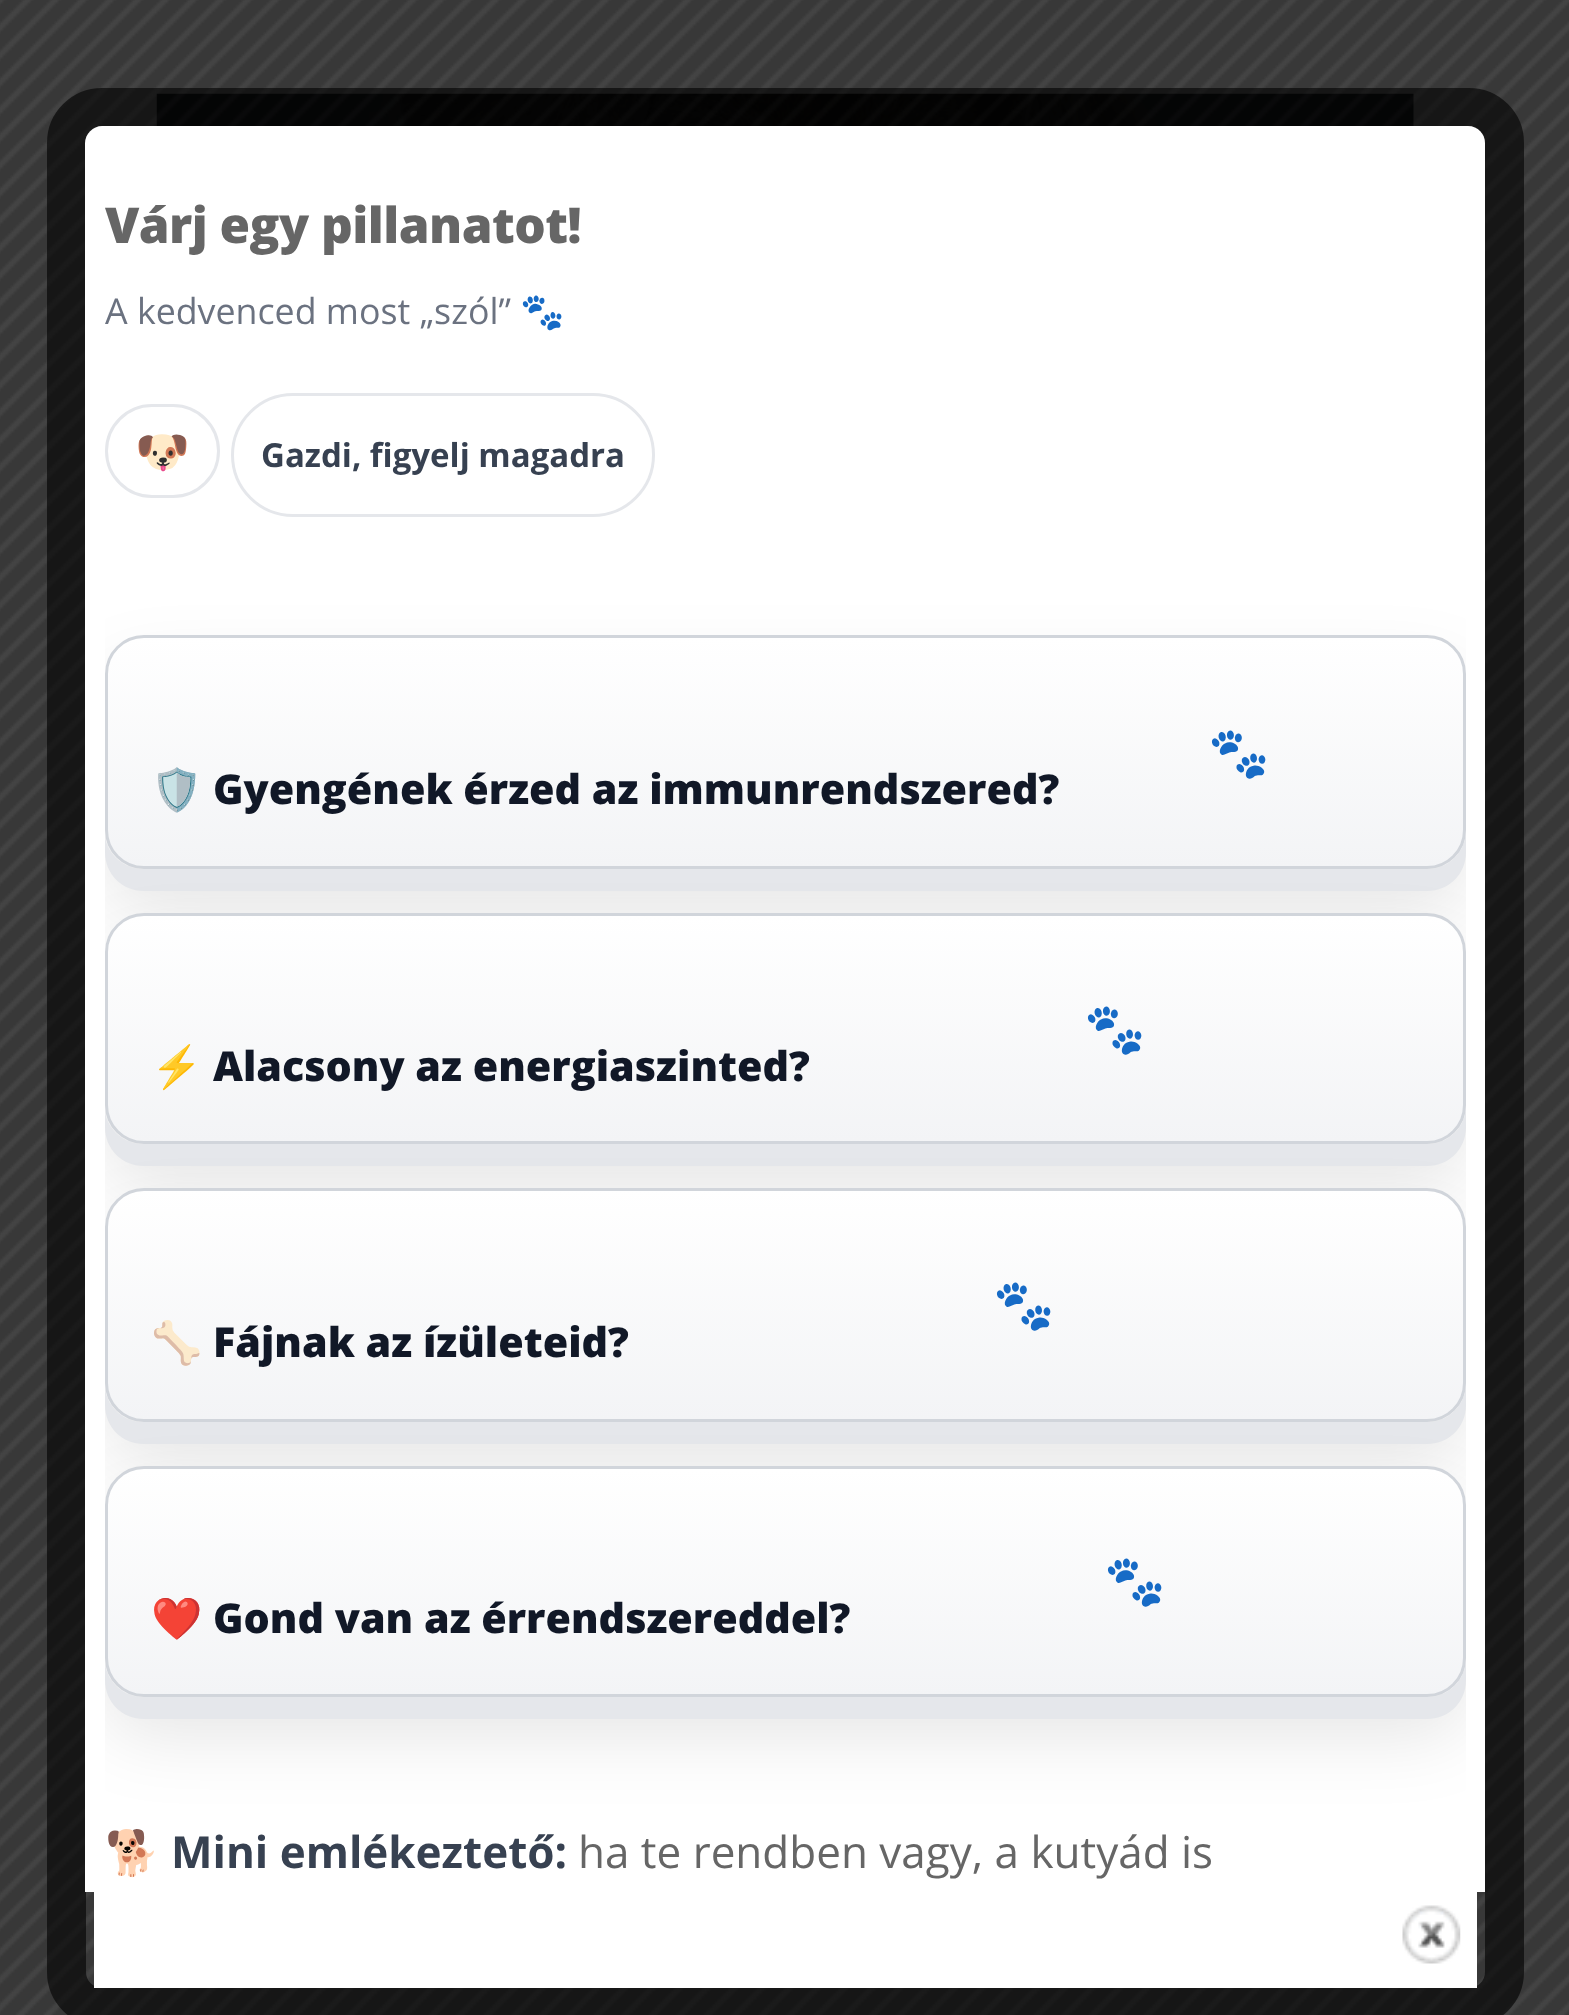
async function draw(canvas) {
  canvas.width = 1569;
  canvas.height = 2015;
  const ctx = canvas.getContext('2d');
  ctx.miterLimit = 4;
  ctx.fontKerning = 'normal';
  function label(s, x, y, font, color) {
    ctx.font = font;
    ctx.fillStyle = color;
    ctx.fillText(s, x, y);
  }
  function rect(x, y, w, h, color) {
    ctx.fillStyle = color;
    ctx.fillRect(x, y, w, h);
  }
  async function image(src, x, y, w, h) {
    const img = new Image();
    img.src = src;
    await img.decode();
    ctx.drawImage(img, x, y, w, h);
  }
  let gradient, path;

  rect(0, 0, 1569, 2015, '#fff');
  await image('assets/img2.png', 156, 93, 1258, 33);
  await image('assets/img1.png', 0, 0, 1569, 2015);
  ctx.beginPath();
  ctx.roundRect(66.5, 107.5, 1438, 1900, 35.5);
  ctx.strokeStyle = '#00000099';
  ctx.lineWidth = 39;
  ctx.stroke();
  path = new Path2D('M102 126H1468C1478 126 1485 134 1485 143V1892H85V143C85 134 93 126 102 126Z');
  ctx.fill(path);
  rect(94, 1892, 1383, 96, '#fff');
  ctx.letterSpacing = '-0.55px';
  label('Várj egy pillanatot!', 105, 243, '800 49.5px Open Sans', '#666');
  ctx.letterSpacing = '0px';
  label('A kedvenced most „szól”', 105, 324, '35.75px Open Sans', '#6b7280');
  label('🐾', 520, 324, '35.75px Noto Color Emoji', '#6b7280');
  ctx.beginPath();
  ctx.roundRect(106.5, 405.5, 112, 91, 45.5);
  ctx.strokeStyle = '#e5e7eb';
  ctx.lineWidth = 3;
  ctx.stroke();
  label('🐶', 135, 467, '44px Noto Color Emoji', '#374151');
  ctx.beginPath();
  ctx.roundRect(232.5, 394.5, 421, 121, 60.5);
  ctx.stroke();
  label('Gazdi, figyelj magadra', 261, 467, 'bold 33px Open Sans', '#374151');
  ctx.save();
  ctx.beginPath();
  ctx.rect(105, 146, 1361, 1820);
  ctx.clip();
  ctx.fillStyle = '#0000001a';
  ctx.filter = 'blur(36px)';
  ctx.beginPath();
  ctx.roundRect(105, 674, 1361, 234, 39);
  ctx.fill();
  ctx.filter = 'none';
  ctx.restore();
  ctx.fillStyle = '#e5e7eb';
  path = new Path2D('M105 837V852C105 874 122 891 144 891H1427C1449 891 1466 874 1466 852V692V830C1466 852 1449 869 1427 869H143C124 869 108 855 105 837Z');
  ctx.fill(path);
  gradient = ctx.createLinearGradient(785, 638, 785, 866);
  gradient.addColorStop(0, '#fff');
  gradient.addColorStop(1, '#f3f4f6');
  ctx.fillStyle = gradient;
  path = new Path2D('M105 674V830C105 846 115 860 129 866H1442C1456 860 1466 846 1466 830V674C1466 658 1456 644 1442 638H129C115 644 105 658 105 674Z');
  ctx.fill(path);
  ctx.beginPath();
  ctx.roundRect(106.5, 636.5, 1358, 231, 37.5);
  ctx.strokeStyle = '#d1d5db';
  ctx.stroke();
  label('🐾', 1208, 770, 'bold 49.5px Noto Color Emoji', '#111827');
  label('🛡️', 151, 804, 'bold 41.25px Noto Color Emoji', '#111827');
  label('Gyengének érzed az immunrendszered?', 213, 804, '800 41.25px Open Sans', '#111827');
  ctx.save();
  ctx.beginPath();
  ctx.rect(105, 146, 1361, 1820);
  ctx.clip();
  ctx.fillStyle = '#0000001a';
  ctx.filter = 'blur(36px)';
  ctx.beginPath();
  ctx.roundRect(105, 952, 1361, 231, 39);
  ctx.fill();
  ctx.filter = 'none';
  ctx.restore();
  ctx.fillStyle = '#e5e7eb';
  path = new Path2D('M105 1112V1127C105 1149 122 1166 144 1166H1427C1449 1166 1466 1149 1466 1127V970V1106C1466 1127 1449 1144 1427 1144H143C124 1144 108 1130 105 1112Z');
  ctx.fill(path);
  gradient = ctx.createLinearGradient(785, 916, 785, 1141);
  gradient.addColorStop(0, '#fff');
  gradient.addColorStop(1, '#f3f4f6');
  ctx.fillStyle = gradient;
  path = new Path2D('M105 952V1105C105 1121 115 1135 129 1141H1442C1456 1135 1466 1121 1466 1105V952C1466 936 1456 922 1442 916H129C115 922 105 936 105 952Z');
  ctx.fill(path);
  ctx.beginPath();
  ctx.roundRect(106.5, 914.5, 1358, 228, 37.5);
  ctx.stroke();
  label('🐾', 1084, 1046, 'bold 49.5px Noto Color Emoji', '#111827');
  label('⚡', 151, 1081, 'bold 41.25px Noto Color Emoji', '#111827');
  label('Alacsony az energiaszinted?', 213, 1081, '800 41.25px Open Sans', '#111827');
  ctx.save();
  ctx.beginPath();
  ctx.rect(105, 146, 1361, 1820);
  ctx.clip();
  ctx.fillStyle = '#0000001a';
  ctx.filter = 'blur(36px)';
  ctx.beginPath();
  ctx.roundRect(105, 1227, 1361, 233, 39);
  ctx.fill();
  ctx.filter = 'none';
  ctx.restore();
  ctx.fillStyle = '#e5e7eb';
  path = new Path2D('M105 1389V1405C105 1427 122 1444 144 1444H1427C1449 1444 1466 1427 1466 1405V1245V1383C1466 1405 1449 1422 1427 1422H143C124 1422 108 1408 105 1389Z');
  ctx.fill(path);
  gradient = ctx.createLinearGradient(785, 1191, 785, 1419);
  gradient.addColorStop(0, '#fff');
  gradient.addColorStop(1, '#f3f4f6');
  ctx.fillStyle = gradient;
  path = new Path2D('M105 1227V1383C105 1399 115 1413 129 1419H1442C1456 1413 1466 1399 1466 1383V1227C1466 1211 1456 1197 1442 1191H129C115 1197 105 1211 105 1227Z');
  ctx.fill(path);
  ctx.beginPath();
  ctx.roundRect(106.5, 1189.5, 1358, 231, 37.5);
  ctx.stroke();
  label('🐾', 993, 1322, 'bold 49.5px Noto Color Emoji', '#111827');
  label('🦴', 151, 1357, 'bold 41.25px Noto Color Emoji', '#111827');
  label('Fájnak az ízületeid?', 213, 1357, '800 41.25px Open Sans', '#111827');
  ctx.save();
  ctx.beginPath();
  ctx.rect(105, 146, 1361, 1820);
  ctx.clip();
  ctx.fillStyle = '#0000001a';
  ctx.filter = 'blur(36px)';
  ctx.beginPath();
  ctx.roundRect(105, 1504, 1361, 231, 39);
  ctx.fill();
  ctx.filter = 'none';
  ctx.restore();
  ctx.fillStyle = '#e5e7eb';
  path = new Path2D('M105 1664V1680C105 1702 122 1719 144 1719H1427C1449 1719 1466 1702 1466 1680V1523V1658C1466 1680 1449 1697 1427 1697H143C124 1697 108 1683 105 1664Z');
  ctx.fill(path);
  gradient = ctx.createLinearGradient(785, 1469, 785, 1694);
  gradient.addColorStop(0, '#fff');
  gradient.addColorStop(1, '#f3f4f6');
  ctx.fillStyle = gradient;
  path = new Path2D('M105 1505V1658C105 1674 115 1688 129 1694H1442C1456 1688 1466 1674 1466 1658V1505C1466 1489 1456 1475 1442 1469H129C115 1475 105 1489 105 1505Z');
  ctx.fill(path);
  ctx.beginPath();
  ctx.roundRect(106.5, 1467.5, 1358, 228, 37.5);
  ctx.stroke();
  label('🐾', 1104, 1598, 'bold 49.5px Noto Color Emoji', '#111827');
  label('❤️', 151, 1633, 'bold 41.25px Noto Color Emoji', '#111827');
  label('Gond van az érrendszereddel?', 213, 1633, '800 41.25px Open Sans', '#111827');
  ctx.save();
  ctx.beginPath();
  ctx.rect(105, 146, 1361, 1820);
  ctx.clip();
  label('🐕', 105, 1868, 'bold 44px Noto Color Emoji', '#374151');
  ctx.restore();
  label('Mini emlékeztető:', 171, 1868, 'bold 44px Open Sans', '#374151');
  label('ha te rendben vagy, a kutyád is', 578, 1868, '44px Open Sans', '#666');
  await image('assets/img3.png', 1402, 1905, 59, 59);
}

draw(document.querySelector('canvas'));
